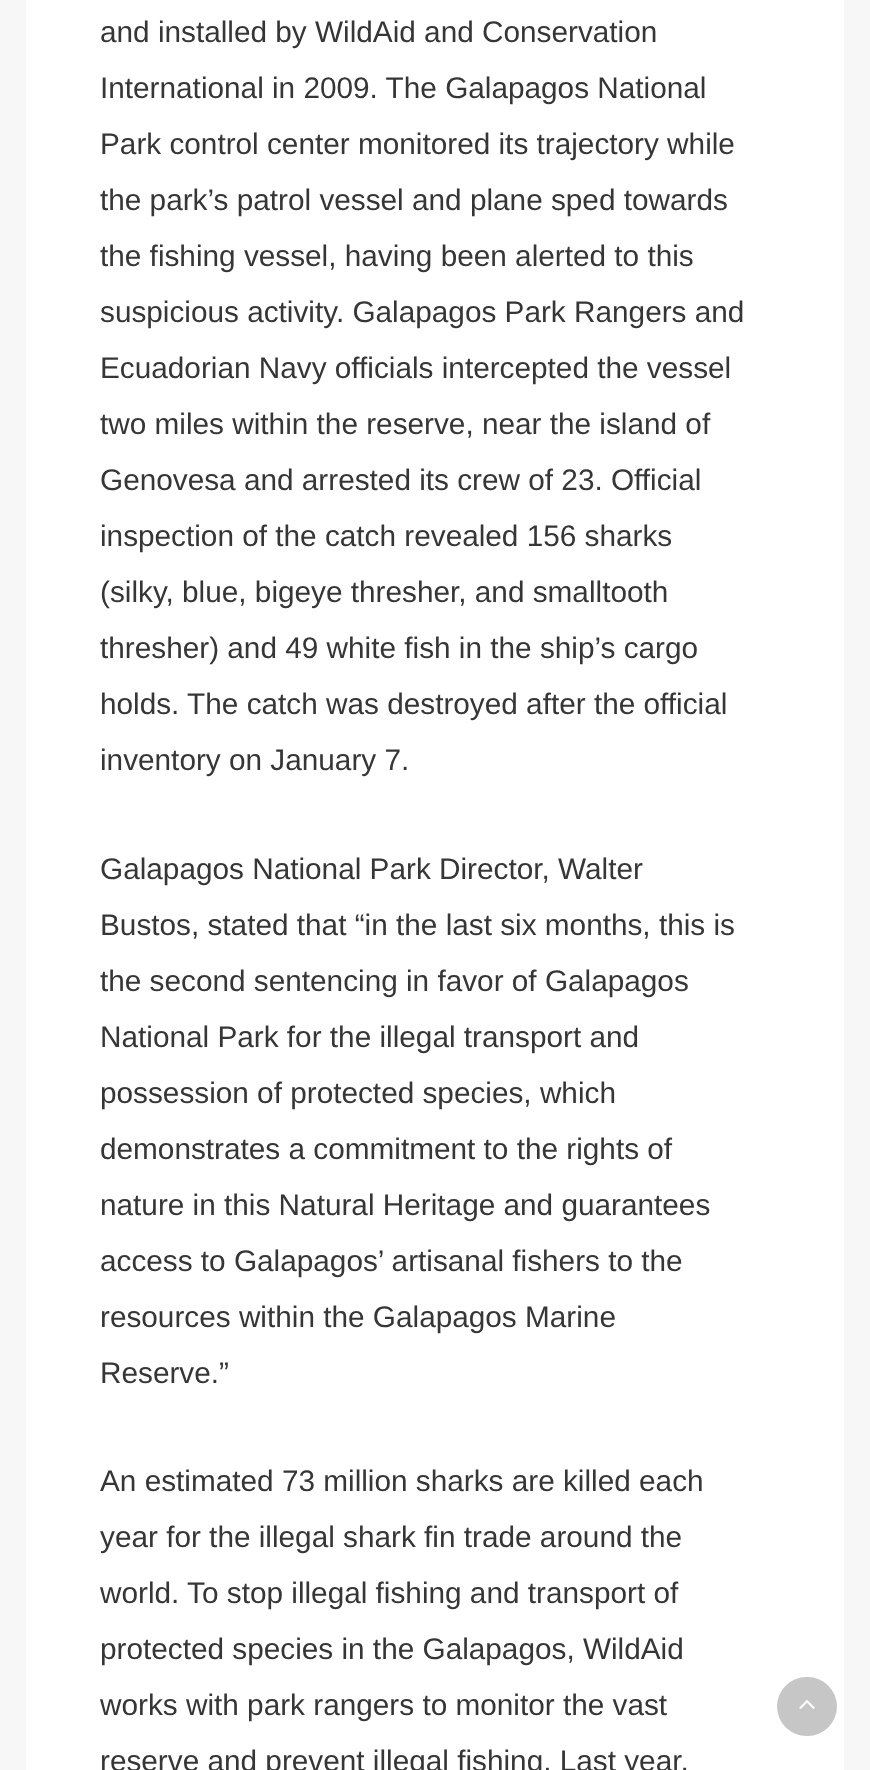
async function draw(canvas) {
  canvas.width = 870;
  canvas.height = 1770;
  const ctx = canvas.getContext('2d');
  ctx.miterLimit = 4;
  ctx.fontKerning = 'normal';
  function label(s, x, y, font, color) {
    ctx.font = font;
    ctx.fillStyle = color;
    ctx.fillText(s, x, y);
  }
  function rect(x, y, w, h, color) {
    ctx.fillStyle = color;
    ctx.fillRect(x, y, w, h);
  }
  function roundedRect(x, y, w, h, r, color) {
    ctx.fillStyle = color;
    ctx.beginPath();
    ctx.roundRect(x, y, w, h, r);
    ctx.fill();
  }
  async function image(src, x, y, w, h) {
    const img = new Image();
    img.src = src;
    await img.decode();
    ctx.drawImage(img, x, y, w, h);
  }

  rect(0, 0, 870, 1770, '#f7f7f7');
  rect(26, 0, 818, 1770, '#fff');
  label('and installed by WildAid and Conservation', 100, 42, '29.75px Liberation Sans', '#363636');
  label('International in 2009. The Galapagos National', 100, 98, '29.75px Liberation Sans', '#363636');
  label('Park control center monitored its trajectory while', 100, 154, '29.75px Liberation Sans', '#363636');
  label('the park’s patrol vessel and plane sped towards', 100, 210, '29.75px Liberation Sans', '#363636');
  label('the fishing vessel, having been alerted to this', 100, 266, '29.75px Liberation Sans', '#363636');
  label('suspicious activity. Galapagos Park Rangers and', 100, 322, '29.75px Liberation Sans', '#363636');
  label('Ecuadorian Navy officials intercepted the vessel', 100, 378, '29.75px Liberation Sans', '#363636');
  label('two miles within the reserve, near the island of', 100, 434, '29.75px Liberation Sans', '#363636');
  label('Genovesa and arrested its crew of 23. Official', 100, 490, '29.75px Liberation Sans', '#363636');
  label('inspection of the catch revealed 156 sharks', 100, 546, '29.75px Liberation Sans', '#363636');
  label('(silky, blue, bigeye thresher, and smalltooth', 100, 602, '29.75px Liberation Sans', '#363636');
  label('thresher) and 49 white fish in the ship’s cargo', 100, 658, '29.75px Liberation Sans', '#363636');
  label('holds. The catch was destroyed after the official', 100, 714, '29.75px Liberation Sans', '#363636');
  label('inventory on January 7.', 100, 770, '29.75px Liberation Sans', '#363636');
  label('Galapagos National Park Director, Walter', 100, 879, '29.75px Liberation Sans', '#363636');
  label('Bustos, stated that “in the last six months, this is', 100, 935, '29.75px Liberation Sans', '#363636');
  label('the second sentencing in favor of Galapagos', 100, 991, '29.75px Liberation Sans', '#363636');
  label('National Park for the illegal transport and', 100, 1047, '29.75px Liberation Sans', '#363636');
  label('possession of protected species, which', 100, 1103, '29.75px Liberation Sans', '#363636');
  label('demonstrates a commitment to the rights of', 100, 1159, '29.75px Liberation Sans', '#363636');
  label('nature in this Natural Heritage and guarantees', 100, 1215, '29.75px Liberation Sans', '#363636');
  label('access to Galapagos’ artisanal fishers to the', 100, 1271, '29.75px Liberation Sans', '#363636');
  label('resources within the Galapagos Marine', 100, 1327, '29.75px Liberation Sans', '#363636');
  label('Reserve.”', 100, 1383, '29.75px Liberation Sans', '#363636');
  label('An estimated 73 million sharks are killed each', 100, 1491, '29.75px Liberation Sans', '#363636');
  label('year for the illegal shark fin trade around the', 100, 1547, '29.75px Liberation Sans', '#363636');
  label('world. To stop illegal fishing and transport of', 100, 1603, '29.75px Liberation Sans', '#363636');
  label('protected species in the Galapagos, WildAid', 100, 1659, '29.75px Liberation Sans', '#363636');
  label('works with park rangers to monitor the vast', 100, 1715, '29.75px Liberation Sans', '#363636');
  label('reserve and prevent illegal fishing. Last year,', 100, 1771, '29.75px Liberation Sans', '#363636');
  roundedRect(777, 1677, 60, 59, 29.5, '#c6c6c6');
  await image('assets/img1.png', 799, 1700, 16, 9);
}

draw(document.querySelector('canvas'));
